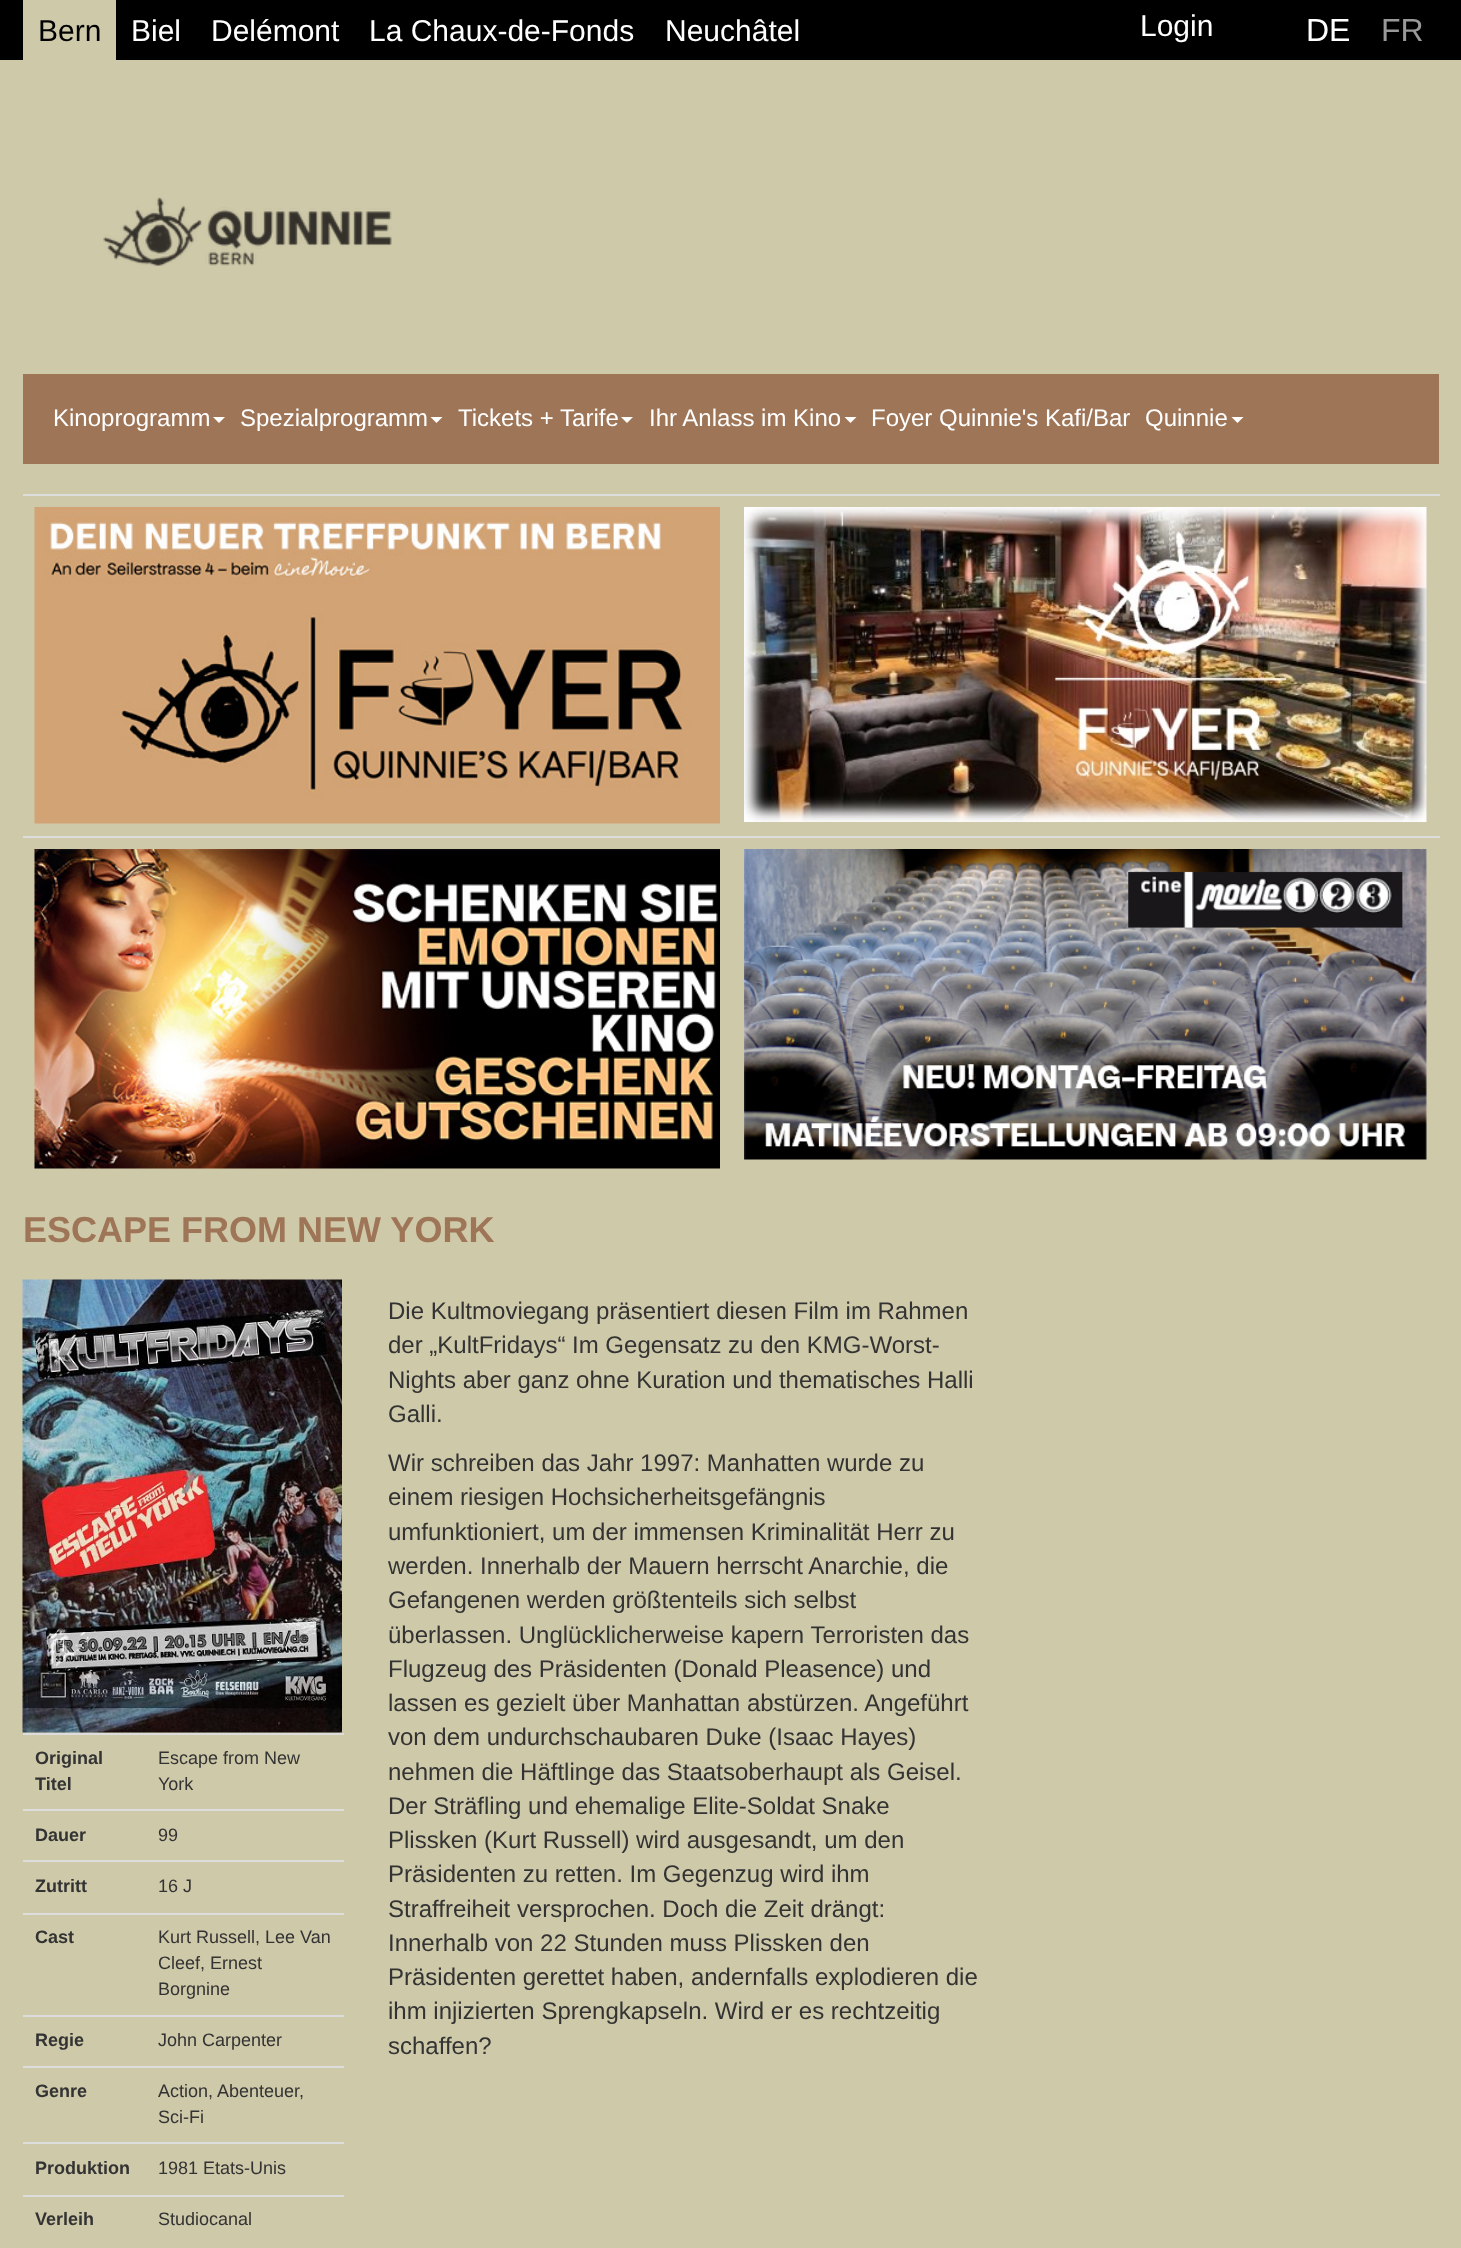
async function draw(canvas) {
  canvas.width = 1461;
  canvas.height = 2248;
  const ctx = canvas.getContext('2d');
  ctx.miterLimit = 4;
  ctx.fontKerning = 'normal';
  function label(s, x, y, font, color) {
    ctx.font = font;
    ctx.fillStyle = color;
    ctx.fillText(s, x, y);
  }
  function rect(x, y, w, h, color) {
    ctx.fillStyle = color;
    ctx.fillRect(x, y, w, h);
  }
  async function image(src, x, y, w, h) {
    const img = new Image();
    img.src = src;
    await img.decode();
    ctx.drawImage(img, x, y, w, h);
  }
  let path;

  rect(0, 0, 1461, 2248, '#cec9a9');
  rect(0, 0, 1461, 60, '#000');
  rect(23, 0, 93, 60, '#cec9a9');
  label('Bern', 38, 41, '30px Liberation Sans', '#000');
  label('Biel', 131, 41, '30px Liberation Sans', '#fff');
  label('Delémont', 211, 41, '30px Liberation Sans', '#fff');
  label('La Chaux-de-Fonds', 369, 41, '30px Liberation Sans', '#fff');
  label('Neuchâtel', 665, 41, '30px Liberation Sans', '#fff');
  label('Login', 1140, 36, '30px Liberation Sans', '#fff');
  label('DE', 1306, 41, '32px Liberation Sans', '#fff');
  label('FR', 1381, 41, '32px Liberation Sans', '#999');
  await image('assets/img1.png', 103, 197, 289, 69);
  rect(23, 374, 1416, 90, '#9e7556');
  label('Kinoprogramm', 53, 426, '24px Liberation Sans', '#fff');
  path = new Path2D('M213 417H225L219 423Z');
  ctx.fill(path);
  label('Spezialprogramm', 240, 426, '24px Liberation Sans', '#fff');
  path = new Path2D('M430.5 417H442.5L436.5 423Z');
  ctx.fill(path);
  label('Tickets + Tarife', 458, 426, '24px Liberation Sans', '#fff');
  path = new Path2D('M621 417H633L627 423Z');
  ctx.fill(path);
  label('Ihr Anlass im Kino', 649, 426, '24px Liberation Sans', '#fff');
  path = new Path2D('M844.5 417H856.5L850.5 423Z');
  ctx.fill(path);
  label('Foyer Quinnie\'s Kafi/Bar', 871, 426, '24px Liberation Sans', '#fff');
  label('Quinnie', 1145, 426, '24px Liberation Sans', '#fff');
  path = new Path2D('M1231.5 417H1243.5L1237.5 423Z');
  ctx.fill(path);
  rect(23, 494, 1417, 2, '#ddd');
  await image('assets/img2.png', 744, 507, 683, 315);
  await image('assets/img3.png', 34, 507, 686, 317);
  rect(23, 836, 1417, 2, '#ddd');
  await image('assets/img4.png', 744, 849, 683, 311);
  await image('assets/img5.png', 34, 849, 686, 320);
  label('ESCAPE FROM NEW YORK', 23, 1242, 'bold 36px Liberation Sans', '#9e7556');
  await image('assets/img6.png', 22, 1279, 320, 454);
  label('Original', 35, 1764, 'bold 18px Liberation Sans', '#333');
  label('Titel', 35, 1790, 'bold 18px Liberation Sans', '#333');
  rect(23, 1733, 321, 2, '#ddd');
  label('Escape from New', 158, 1764, '18px Liberation Sans', '#333');
  label('York', 158, 1790, '18px Liberation Sans', '#333');
  label('Dauer', 35, 1841, 'bold 18px Liberation Sans', '#333');
  rect(23, 1809, 321, 2, '#ddd');
  label('99', 158, 1841, '18px Liberation Sans', '#333');
  label('Zutritt', 35, 1892, 'bold 18px Liberation Sans', '#333');
  rect(23, 1860, 321, 2, '#ddd');
  label('16 J', 158, 1892, '18px Liberation Sans', '#333');
  label('Cast', 35, 1943, 'bold 18px Liberation Sans', '#333');
  rect(23, 1913, 321, 2, '#ddd');
  label('Kurt Russell, Lee Van', 158, 1943, '18px Liberation Sans', '#333');
  label('Cleef, Ernest', 158, 1969, '18px Liberation Sans', '#333');
  label('Borgnine', 158, 1995, '18px Liberation Sans', '#333');
  label('Regie', 35, 2046, 'bold 18px Liberation Sans', '#333');
  rect(23, 2015, 321, 2, '#ddd');
  label('John Carpenter', 158, 2046, '18px Liberation Sans', '#333');
  label('Genre', 35, 2097, 'bold 18px Liberation Sans', '#333');
  rect(23, 2066, 321, 2, '#ddd');
  label('Action, Abenteuer,', 158, 2097, '18px Liberation Sans', '#333');
  label('Sci-Fi', 158, 2123, '18px Liberation Sans', '#333');
  label('Produktion', 35, 2174, 'bold 18px Liberation Sans', '#333');
  rect(23, 2142, 321, 2, '#ddd');
  label('1981 Etats-Unis', 158, 2174, '18px Liberation Sans', '#333');
  label('Verleih', 35, 2225, 'bold 18px Liberation Sans', '#333');
  rect(23, 2195, 321, 2, '#ddd');
  label('Studiocanal', 158, 2225, '18px Liberation Sans', '#333');
  label('Die Kultmoviegang präsentiert diesen Film im Rahmen', 388, 1319, '24px Liberation Sans', '#333');
  label('der „KultFridays“ Im Gegensatz zu den KMG-Worst-', 388, 1353, '24px Liberation Sans', '#333');
  label('Nights aber ganz ohne Kuration und thematisches Halli', 388, 1388, '24px Liberation Sans', '#333');
  label('Galli.', 388, 1422, '24px Liberation Sans', '#333');
  label('Wir schreiben das Jahr 1997: Manhatten wurde zu', 388, 1471, '24px Liberation Sans', '#333');
  label('einem riesigen Hochsicherheitsgefängnis', 388, 1505, '24px Liberation Sans', '#333');
  label('umfunktioniert, um der immensen Kriminalität Herr zu', 388, 1540, '24px Liberation Sans', '#333');
  label('werden. Innerhalb der Mauern herrscht Anarchie, die', 388, 1574, '24px Liberation Sans', '#333');
  label('Gefangenen werden größtenteils sich selbst', 388, 1608, '24px Liberation Sans', '#333');
  label('überlassen. Unglücklicherweise kapern Terroristen das', 388, 1643, '24px Liberation Sans', '#333');
  label('Flugzeug des Präsidenten (Donald Pleasence) und', 388, 1677, '24px Liberation Sans', '#333');
  label('lassen es gezielt über Manhattan abstürzen. Angeführt', 388, 1711, '24px Liberation Sans', '#333');
  label('von dem undurchschaubaren Duke (Isaac Hayes)', 388, 1745, '24px Liberation Sans', '#333');
  label('nehmen die Häftlinge das Staatsoberhaupt als Geisel.', 388, 1780, '24px Liberation Sans', '#333');
  label('Der Sträfling und ehemalige Elite-Soldat Snake', 388, 1814, '24px Liberation Sans', '#333');
  label('Plissken (Kurt Russell) wird ausgesandt, um den', 388, 1848, '24px Liberation Sans', '#333');
  label('Präsidenten zu retten. Im Gegenzug wird ihm', 388, 1882, '24px Liberation Sans', '#333');
  label('Straffreiheit versprochen. Doch die Zeit drängt:', 388, 1917, '24px Liberation Sans', '#333');
  label('Innerhalb von 22 Stunden muss Plissken den', 388, 1951, '24px Liberation Sans', '#333');
  label('Präsidenten gerettet haben, andernfalls explodieren die', 388, 1985, '24px Liberation Sans', '#333');
  label('ihm injizierten Sprengkapseln. Wird er es rechtzeitig', 388, 2019, '24px Liberation Sans', '#333');
  label('schaffen?', 388, 2054, '24px Liberation Sans', '#333');
}

draw(document.querySelector('canvas'));
